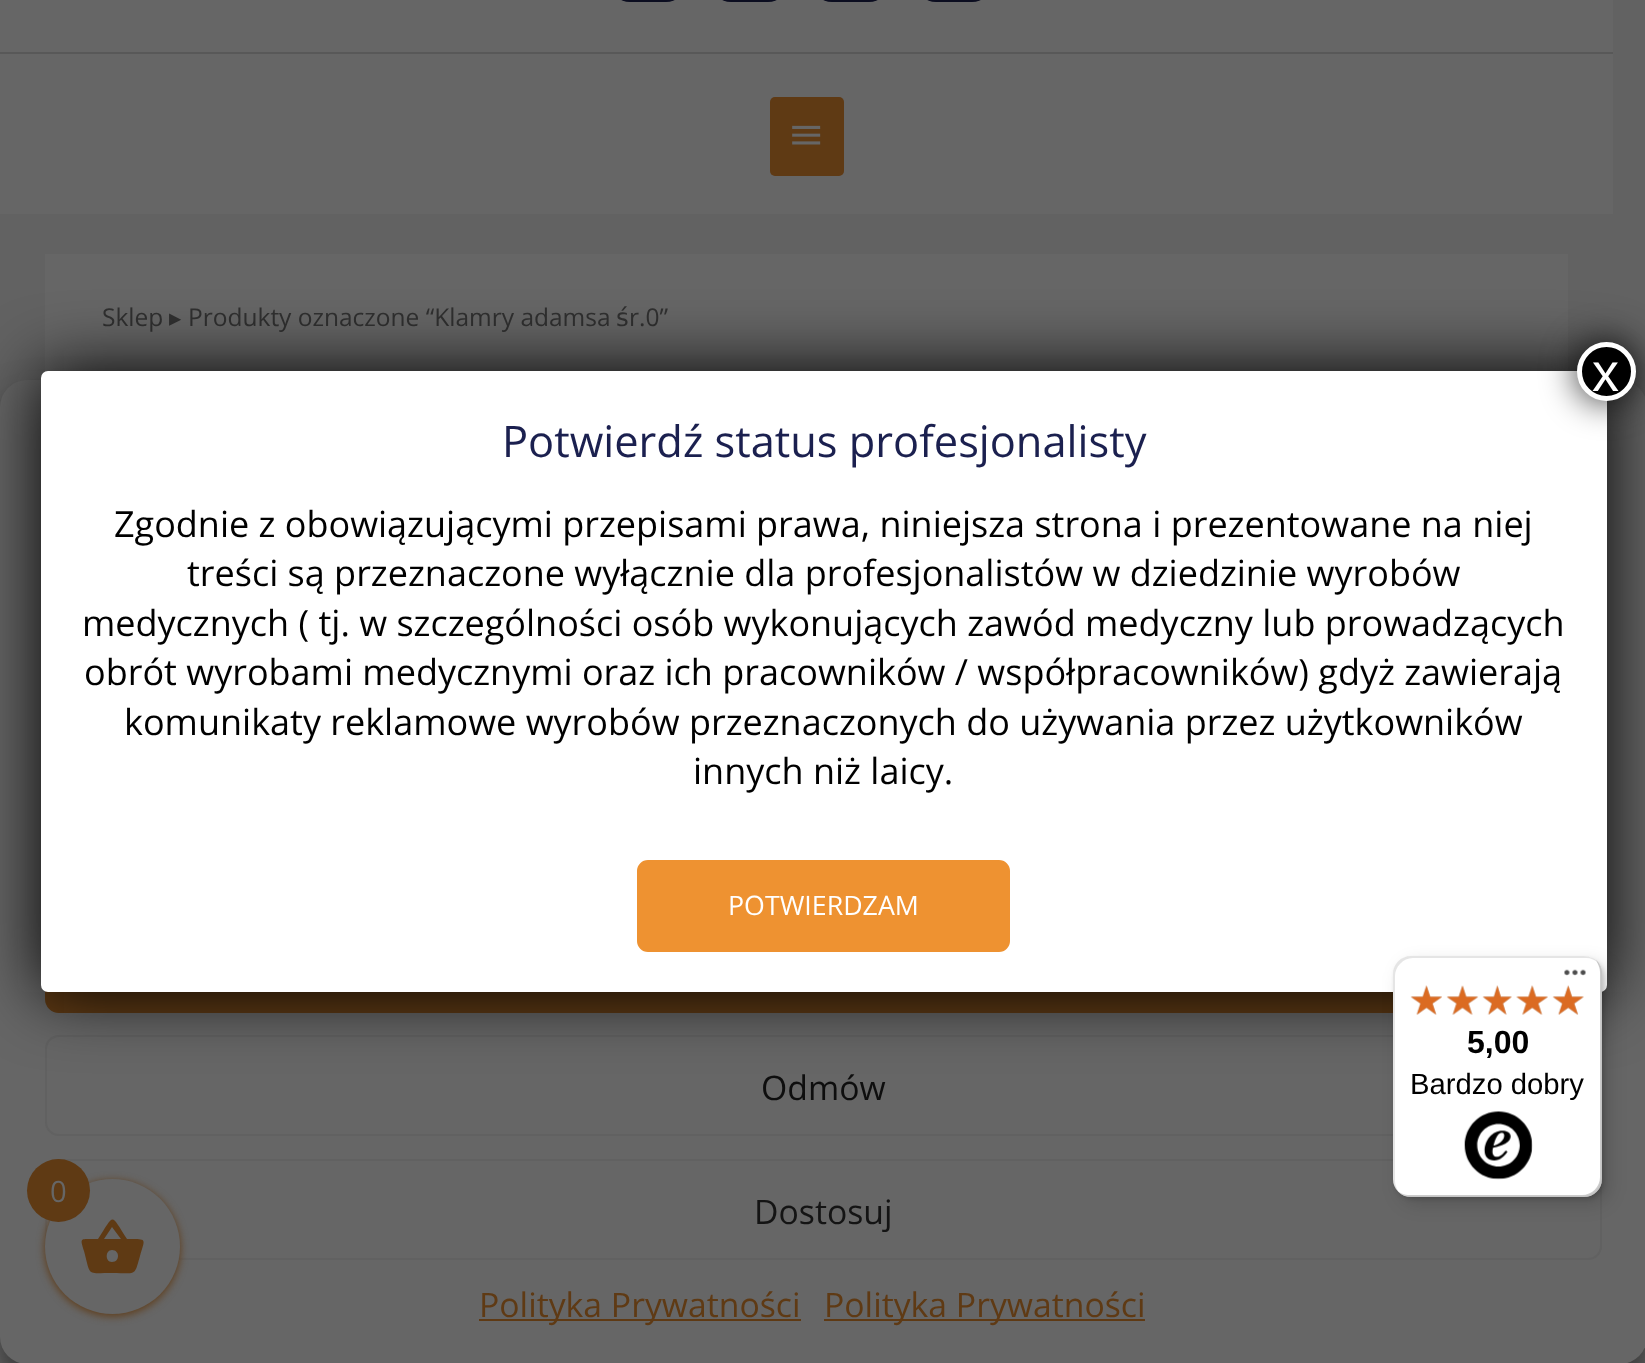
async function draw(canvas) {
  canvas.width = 1645;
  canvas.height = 1363;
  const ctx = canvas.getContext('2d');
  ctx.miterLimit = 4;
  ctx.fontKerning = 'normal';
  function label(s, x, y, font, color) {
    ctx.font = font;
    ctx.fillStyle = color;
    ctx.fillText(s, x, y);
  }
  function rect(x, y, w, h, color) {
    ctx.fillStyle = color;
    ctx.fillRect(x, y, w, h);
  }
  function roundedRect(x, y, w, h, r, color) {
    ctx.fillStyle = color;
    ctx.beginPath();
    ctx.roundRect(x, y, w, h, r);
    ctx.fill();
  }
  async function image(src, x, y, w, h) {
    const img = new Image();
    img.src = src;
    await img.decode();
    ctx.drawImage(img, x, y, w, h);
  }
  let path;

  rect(0, 0, 1645, 1363, '#626262');
  rect(0, 0, 1613, 52, '#666');
  rect(0, 52, 1613, 2, '#585858');
  roundedRect(610, -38, 76, 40, 38, '#0b0d20');
  roundedRect(711, -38, 77, 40, 38, '#0b0d20');
  roundedRect(812, -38, 77, 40, 38, '#0b0d20');
  roundedRect(916, -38, 76, 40, 38, '#0b0d20');
  rect(0, 54, 1613, 160, '#666');
  roundedRect(770, 97, 74, 79, 5, '#5f3a14');
  await image('assets/img1.png', 792, 125, 29, 20);
  rect(45, 254, 1523, 118, '#666');
  label('Sklep', 102, 326, '24.5px Open Sans', '#303030');
  label('▸', 169, 326, '24.5px DejaVu Sans', '#303030');
  label('Produkty oznaczone “Klamry adamsa', 188, 326, '24.5px Open Sans', '#303030');
  label('ś', 616, 326, '24.5px DejaVu Sans', '#303030');
  label('r.0”', 629, 326, '24.5px Open Sans', '#303030');
  ctx.fillStyle = '#0000003b';
  ctx.filter = 'blur(7px)';
  ctx.beginPath();
  ctx.roundRect(0, 394, 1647, 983, 27);
  ctx.fill();
  ctx.filter = 'none';
  ctx.fillStyle = '#00000030';
  ctx.filter = 'blur(22.5px)';
  ctx.beginPath();
  ctx.roundRect(0, 403, 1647, 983, 27);
  ctx.fill();
  ctx.filter = 'none';
  roundedRect(0, 380, 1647, 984, 27, '#666');
  ctx.fillStyle = '#5f3a14';
  ctx.beginPath();
  ctx.roundRect(46, 912, 1555, 100, 13);
  ctx.fill();
  ctx.strokeStyle = '#5f3a14';
  ctx.lineWidth = 2;
  ctx.stroke();
  ctx.beginPath();
  ctx.roundRect(46, 1036, 1555, 99, 13);
  ctx.strokeStyle = '#616161';
  ctx.stroke();
  ctx.fillStyle = '#020202';
  ctx.filter = 'blur(34px)';
  ctx.beginPath();
  ctx.roundRect(41, 371, 1566, 621, 7);
  ctx.fill();
  ctx.filter = 'none';
  roundedRect(41, 371, 1566, 621, 7, '#fff');
  ctx.fillStyle = '#020202bf';
  ctx.filter = 'blur(17px)';
  ctx.beginPath();
  ctx.roundRect(1575, 340, 63, 63, 31.5);
  ctx.fill();
  ctx.filter = 'none';
  ctx.fillStyle = '#000';
  ctx.beginPath();
  ctx.arc(1606.5, 371.5, 27, 0, 2 * Math.PI);
  ctx.fill();
  ctx.strokeStyle = '#fff';
  ctx.lineWidth = 5;
  ctx.stroke();
  label('x', 1592, 391, '54px Liberation Sans', '#fff');
  label('Potwierdź status profesjonalisty', 502, 457, '43.4px Open Sans', '#1b204f');
  label('Zgodnie z obowiązującymi przepisami prawa, niniejsza strona i prezentowane na niej', 114, 537, '36px Open Sans', '#000');
  label('treści są przeznaczone wyłącznie dla profesjonalistów w dziedzinie wyrobów', 187, 586, '36px Open Sans', '#000');
  label('medycznych ( tj. w szczególności osób wykonujących zawód medyczny lub prowadzących', 82, 636, '36px Open Sans', '#000');
  label('obrót wyrobami medycznymi oraz ich pracowników / współpracowników) gdyż zawierają', 84, 685, '36px Open Sans', '#000');
  label('komunikaty reklamowe wyrobów przeznaczonych do używania przez użytkowników', 124, 735, '36px Open Sans', '#000');
  label('innych niż laicy.', 693, 784, '36px Open Sans', '#000');
  ctx.fillStyle = '#ee9231';
  ctx.beginPath();
  ctx.roundRect(638, 861, 371, 90, 10);
  ctx.fill();
  ctx.strokeStyle = '#ee9231';
  ctx.lineWidth = 2;
  ctx.stroke();
  label('POTWIERDZAM', 728, 915, '26.75px Open Sans', '#fff');
  ctx.beginPath();
  ctx.roundRect(46, 1160, 1555, 99, 13);
  ctx.strokeStyle = '#616161';
  ctx.stroke();
  ctx.fillStyle = '#00000026';
  ctx.filter = 'blur(9px)';
  ctx.beginPath();
  ctx.roundRect(1400, 963, 209, 241, 18);
  ctx.fill();
  ctx.filter = 'none';
  ctx.filter = 'blur(2px)';
  ctx.beginPath();
  ctx.roundRect(1395, 959, 209, 240, 18);
  ctx.fill();
  ctx.filter = 'none';
  roundedRect(1393, 956, 209, 241, 18, '#fff');
  ctx.fillStyle = '#0000001a';
  path = new Path2D('M1413 958H1586C1591 958 1595 960 1599 963C1595 959 1590 956 1584 956H1411C1401 956 1393 964 1393 974V1179C1393 1184 1395 1189 1399 1193C1397 1189 1395 1185 1395 1181V976C1395 967 1403 958 1413 958Z');
  ctx.fill(path);
  ctx.fillStyle = '#00000033';
  path = new Path2D('M1399 1192C1402 1195 1406 1197 1411 1197H1584C1594 1197 1602 1189 1602 1179V974C1602 969 1600 964 1596 960C1598 964 1600 968 1600 972V1177C1600 1187 1592 1195 1582 1195H1408C1405 1195 1402 1194 1399 1192Z');
  ctx.fill(path);
  ctx.fillStyle = '#32323233';
  path = new Path2D('M1402 1195C1405 1196 1408 1197 1411 1197H1584C1594 1197 1602 1189 1602 1179V974C1602 969 1600 964 1597 961C1599 964 1601 968 1601 973V1178C1601 1188 1593 1196 1583 1196H1409C1407 1196 1404 1196 1402 1195Z');
  ctx.fill(path);
  ctx.fillStyle = '#ffffff4d';
  path = new Path2D('M1398 1192C1401 1195 1406 1197 1411 1197H1584C1594 1197 1602 1189 1602 1179V974C1602 969 1600 964 1597 961C1599 964 1601 968 1601 973V1178C1601 1188 1593 1196 1583 1196H1410C1405 1196 1401 1194 1398 1192Z');
  ctx.fill(path);
  await image('assets/img2.png', 1564, 969, 22, 7);
  await image('assets/img8.png', 1411, 985, 31, 30);
  await image('assets/img3.png', 1410, 985, 32, 30);
  await image('assets/img9.png', 1447, 986, 31, 29);
  await image('assets/img4.png', 1446, 985, 33, 30);
  await image('assets/img10.png', 1483, 985, 29, 30);
  await image('assets/img5.png', 1482, 985, 30, 30);
  await image('assets/img11.png', 1516, 985, 32, 30);
  await image('assets/img6.png', 1516, 985, 32, 30);
  await image('assets/img12.png', 1553, 985, 31, 30);
  await image('assets/img7.png', 1552, 985, 32, 30);
  label('5,00', 1467, 1053, 'bold 32px Liberation Sans', '#000');
  label('Bardzo dobry', 1410, 1094, '29.25px Liberation Sans', '#000');
  await image('assets/img13.png', 1464, 1111, 69, 69);
  ctx.fillStyle = '#5f3a14';
  ctx.filter = 'blur(4.5px)';
  ctx.beginPath();
  ctx.roundRect(45, 1181, 135, 135, 67.5);
  ctx.fill();
  ctx.filter = 'none';
  ctx.fillStyle = '#666';
  ctx.beginPath();
  ctx.arc(112.5, 1246.5, 67.5, 0, 2 * Math.PI);
  ctx.fill();
  ctx.fillStyle = '#5f3a14';
  path = new Path2D('M112 1262C120 1262 120 1250 112 1250C105 1250 105 1262 112 1262ZM104 1239H121L112 1227ZM127 1239C148 1239 145 1238 140 1256C134 1277 137 1273 112 1273C86 1273 91 1277 84 1251C80 1237 79 1239 98 1239C115 1213 110 1213 127 1239Z');
  ctx.fill(path);
  ctx.beginPath();
  ctx.arc(58.5, 1190.5, 31.5, 0, 2 * Math.PI);
  ctx.fill();
  label('0', 50, 1202, '29.25px Open Sans', '#666');
  label('Odmów', 761, 1100, '33.75px Open Sans', '#0e0e0e');
  label('Dostosuj', 754, 1224, '33.75px Open Sans', '#141414');
  rect(479, 1319, 322, 2, '#5f3a14');
  label('Polityka Prywatności', 479, 1317, '33.75px Open Sans', '#5f3a14');
  rect(824, 1319, 321, 2, '#5f3a14');
  label('Polityka Prywatności', 824, 1317, '33.75px Open Sans', '#5f3a14');
}

draw(document.querySelector('canvas'));
